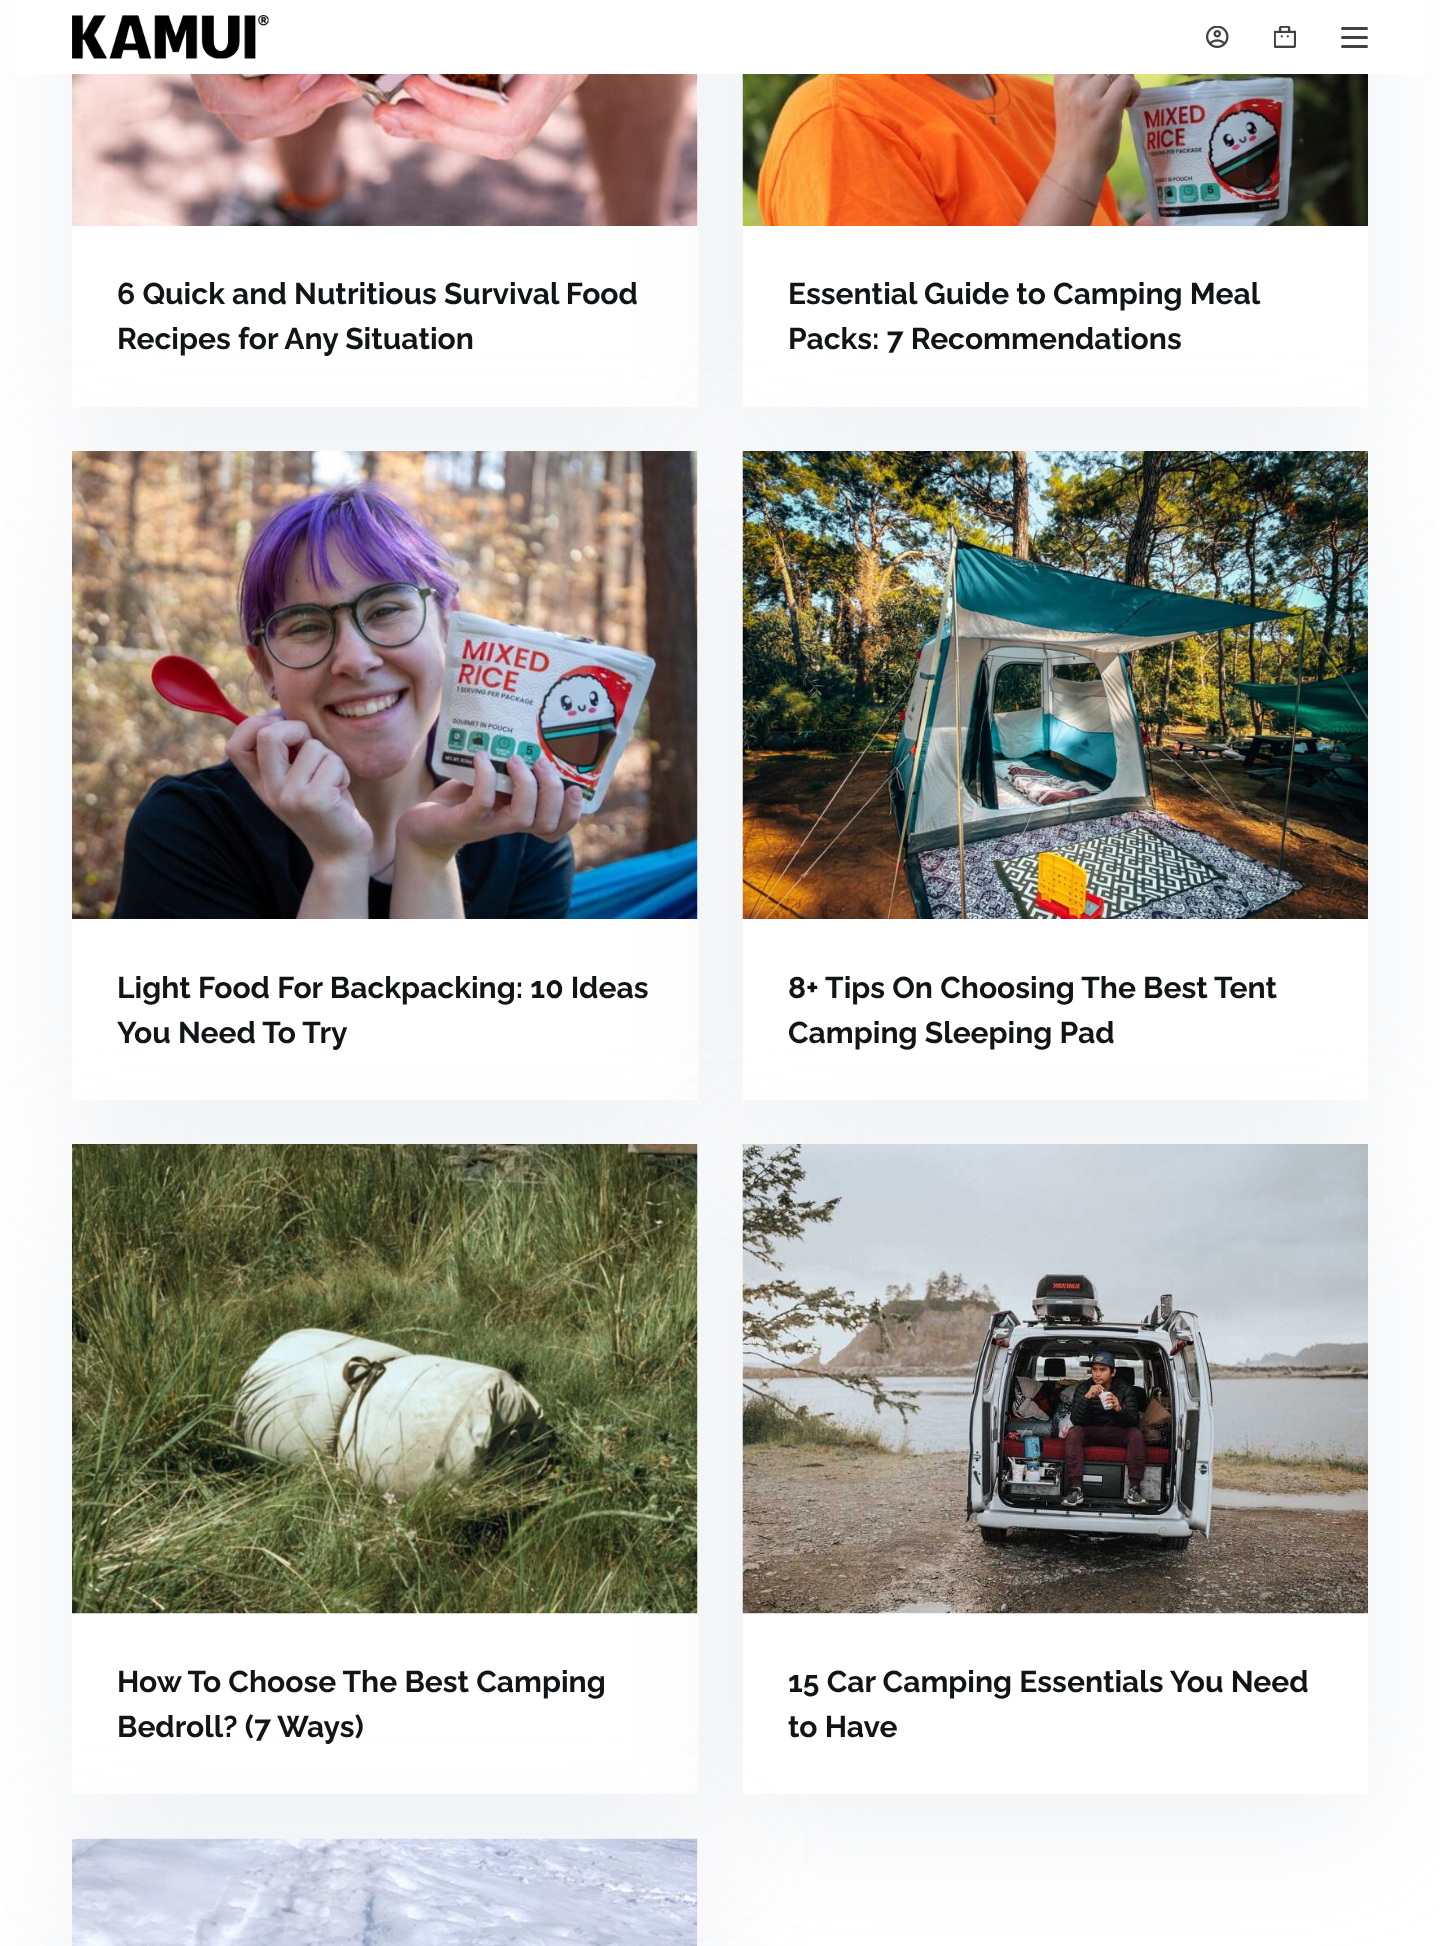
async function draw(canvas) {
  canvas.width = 1440;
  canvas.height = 1946;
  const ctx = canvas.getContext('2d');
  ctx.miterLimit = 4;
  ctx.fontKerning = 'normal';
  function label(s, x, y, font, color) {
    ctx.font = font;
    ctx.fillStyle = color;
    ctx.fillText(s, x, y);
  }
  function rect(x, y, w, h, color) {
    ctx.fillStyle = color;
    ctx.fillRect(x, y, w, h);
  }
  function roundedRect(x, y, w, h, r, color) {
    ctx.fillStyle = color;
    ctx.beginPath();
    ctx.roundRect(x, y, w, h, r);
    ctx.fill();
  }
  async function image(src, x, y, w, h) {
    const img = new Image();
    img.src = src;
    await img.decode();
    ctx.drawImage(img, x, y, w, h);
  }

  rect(0, 0, 1440, 1946, '#fff');
  ctx.fillStyle = '#c0c6d340';
  ctx.filter = 'blur(60px)';
  ctx.beginPath();
  ctx.rect(72, -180, 626, 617);
  ctx.fill();
  ctx.filter = 'none';
  rect(72, 74, 626, 333, '#fff');
  ctx.fillStyle = '#c0c6d340';
  ctx.filter = 'blur(60px)';
  ctx.beginPath();
  ctx.rect(743, -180, 625, 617);
  ctx.fill();
  ctx.filter = 'none';
  rect(15, 0, 1410, 74, '#fff');
  await image('assets/img1.png', 72, 15, 197, 44);
  await image('assets/img2.png', 1206, 26, 23, 22);
  await image('assets/img3.png', 1274, 26, 22, 22);
  roundedRect(1341, 27, 27, 3, 1.5, '#3f4245');
  roundedRect(1341, 36, 27, 3, 1.5, '#3f4245');
  roundedRect(1341, 45, 27, 3, 1.5, '#3f4245');
  await image('assets/img4.png', 72, 74, 626, 152);
  label('6 Quick and Nutritious Survival Food', 117, 304, 'bold 30px Raleway', '#111518');
  label('Recipes for Any Situation', 117, 349, 'bold 30px Raleway', '#111518');
  rect(743, 226, 625, 181, '#fff');
  await image('assets/img5.png', 742, 74, 626, 152);
  label('Essential Guide to Camping Meal', 788, 304, 'bold 30px Raleway', '#111518');
  label('Packs: 7 Recommendations', 788, 349, 'bold 30px Raleway', '#111518');
  ctx.fillStyle = '#c0c6d340';
  ctx.filter = 'blur(60px)';
  ctx.beginPath();
  ctx.rect(72, 482, 626, 648);
  ctx.fill();
  ctx.filter = 'none';
  rect(72, 452, 626, 648, '#fff');
  ctx.fillStyle = '#c0c6d340';
  ctx.filter = 'blur(60px)';
  ctx.beginPath();
  ctx.rect(743, 482, 625, 648);
  ctx.fill();
  ctx.filter = 'none';
  await image('assets/img6.png', 72, 451, 626, 468);
  label('Light Food For Backpacking: 10 Ideas', 117, 998, 'bold 30px Raleway', '#111518');
  label('You Need To Try', 117, 1043, 'bold 30px Raleway', '#111518');
  rect(743, 919, 625, 181, '#fff');
  await image('assets/img7.png', 742, 451, 626, 468);
  label('8+ Tips On Choosing The Best Tent', 788, 998, 'bold 30px Raleway', '#111518');
  label('Camping Sleeping Pad', 788, 1043, 'bold 30px Raleway', '#111518');
  ctx.fillStyle = '#c0c6d340';
  ctx.filter = 'blur(60px)';
  ctx.beginPath();
  ctx.rect(72, 1175, 626, 649);
  ctx.fill();
  ctx.filter = 'none';
  rect(72, 1145, 626, 649, '#fff');
  ctx.fillStyle = '#c0c6d340';
  ctx.filter = 'blur(60px)';
  ctx.beginPath();
  ctx.rect(743, 1175, 625, 649);
  ctx.fill();
  ctx.filter = 'none';
  await image('assets/img8.png', 72, 1144, 626, 470);
  label('How To Choose The Best Camping', 117, 1692, 'bold 30px Raleway', '#111518');
  label('Bedroll? (7 Ways)', 117, 1737, 'bold 30px Raleway', '#111518');
  rect(743, 1613, 625, 181, '#fff');
  await image('assets/img9.png', 742, 1144, 626, 470);
  label('15 Car Camping Essentials You Need', 788, 1692, 'bold 30px Raleway', '#111518');
  label('to Have', 788, 1737, 'bold 30px Raleway', '#111518');
  ctx.fillStyle = '#c0c6d340';
  ctx.filter = 'blur(60px)';
  ctx.beginPath();
  ctx.rect(72, 1869, 626, 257);
  ctx.fill();
  ctx.filter = 'none';
  rect(697, 1839, 1, 107, '#fff');
  await image('assets/img10.png', 72, 1838, 626, 108);
}

draw(document.querySelector('canvas'));
